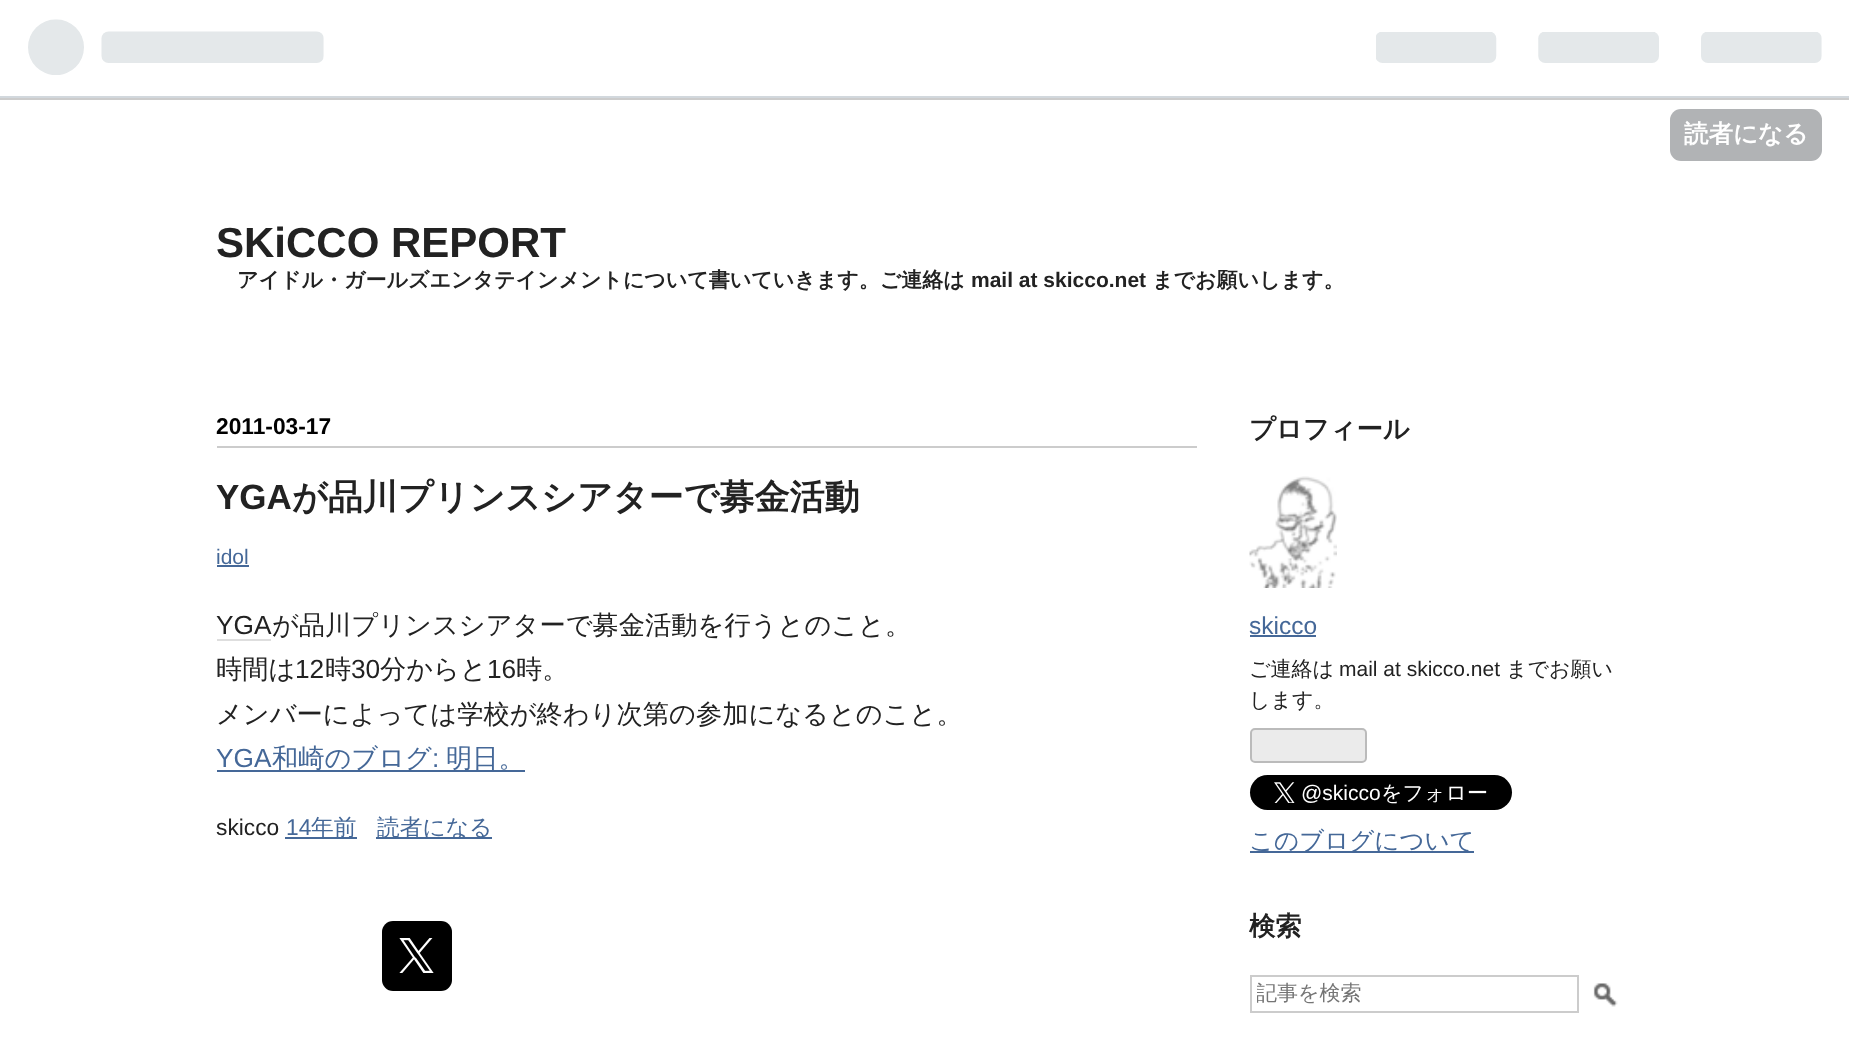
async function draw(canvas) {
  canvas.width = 1849;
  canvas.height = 1063;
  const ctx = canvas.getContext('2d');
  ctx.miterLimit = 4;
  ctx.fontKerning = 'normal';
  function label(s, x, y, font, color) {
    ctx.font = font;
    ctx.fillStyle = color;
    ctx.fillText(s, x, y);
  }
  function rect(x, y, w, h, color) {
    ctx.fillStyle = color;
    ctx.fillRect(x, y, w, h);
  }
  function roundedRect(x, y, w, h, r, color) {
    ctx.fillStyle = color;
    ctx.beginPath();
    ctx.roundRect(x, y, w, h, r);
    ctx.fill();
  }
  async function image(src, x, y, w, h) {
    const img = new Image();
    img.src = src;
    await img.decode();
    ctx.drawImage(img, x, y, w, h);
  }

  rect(0, 0, 1849, 1063, '#fff');
  rect(0, 96, 1849, 2, '#d2d8dd');
  rect(0, 98, 1849, 2, '#ccc');
  await image('assets/img1.png', 28, 19, 296, 56);
  await image('assets/img2.png', 1376, 32, 446, 31);
  roundedRect(1670, 109, 152, 52, 11, '#b1b3b5');
  label('読者になる', 1684, 142, 'bold 24.5px WenQuanYi Zen Hei', '#fff');
  label('SKiCCO REPORT', 216, 257, 'bold 42px Liberation Sans', '#222');
  label('アイドル・ガールズエンタテインメントについて書いていきます。ご連絡は', 237, 287, 'bold 21px WenQuanYi Zen Hei', '#222');
  label('mail at skicco.net', 971, 287, 'bold 21px Liberation Sans', '#222');
  label('までお願いします。', 1152, 287, 'bold 21px WenQuanYi Zen Hei', '#222');
  rect(217, 446, 980, 2, '#ccc');
  label('2011-03-17', 216, 434, 'bold 22.75px Liberation Sans', '#000');
  label('YGA', 216, 509, 'bold 35px Liberation Sans', '#222');
  label('が品川プリンスシアターで募金活動', 292, 509, 'bold 35px WenQuanYi Zen Hei', '#222');
  label('idol', 216, 564, '21px Liberation Sans', '#456898');
  rect(217, 565, 32, 2, '#456898');
  label('YGA', 216, 634, '26.25px Liberation Sans', '#222');
  rect(217, 639, 54, 2, '#dedede');
  label('が品川プリンスシアターで募金活動を行うとのこと。', 272, 634, '500 26.25px WenQuanYi Zen Hei', '#222');
  label('時間は', 216, 678, '500 26.25px WenQuanYi Zen Hei', '#222');
  label('12', 295, 678, '26.25px Liberation Sans', '#222');
  label('時', 325, 678, '500 26.25px WenQuanYi Zen Hei', '#222');
  label('30', 351, 678, '26.25px Liberation Sans', '#222');
  label('分からと', 380, 678, '500 26.25px WenQuanYi Zen Hei', '#222');
  label('16', 487, 678, '26.25px Liberation Sans', '#222');
  label('時。', 516, 678, '500 26.25px WenQuanYi Zen Hei', '#222');
  label('メンバーによっては学校が終わり次第の参加になるとのこと。', 216, 723, '500 26.25px WenQuanYi Zen Hei', '#222');
  label('YGA', 216, 767, '26.25px Liberation Sans', '#456898');
  rect(217, 770, 308, 2, '#456898');
  label('和崎のブログ', 272, 767, '500 26.25px WenQuanYi Zen Hei', '#456898');
  label(':', 432, 767, '26.25px Liberation Sans', '#456898');
  label('明日。', 446, 767, '500 26.25px WenQuanYi Zen Hei', '#456898');
  label('skicco', 216, 835, '22.75px Liberation Sans', '#222');
  label('14', 286, 835, '22.75px Liberation Sans', '#456898');
  rect(285, 837, 72, 2, '#456898');
  label('年前', 311, 835, '500 22.75px WenQuanYi Zen Hei', '#456898');
  rect(376, 837, 116, 2, '#456898');
  label('読者になる', 377, 835, '500 22.75px WenQuanYi Zen Hei', '#456898');
  roundedRect(382, 921, 70, 70, 11, '#000');
  await image('assets/img3.png', 399, 938, 35, 35);
  label('プロフィール', 1249, 438, 'bold 26.25px WenQuanYi Zen Hei', '#222');
  await image('assets/img4.png', 1249, 476, 88, 112);
  label('skicco', 1249, 634, '24.5px Liberation Sans', '#456898');
  rect(1250, 635, 66, 2, '#456898');
  label('ご連絡は', 1249, 676, '500 21px WenQuanYi Zen Hei', '#222');
  label('mail at skicco.net', 1339, 676, '21px Liberation Sans', '#222');
  label('までお願い', 1506, 676, '500 21px WenQuanYi Zen Hei', '#222');
  label('します。', 1249, 707, '500 21px WenQuanYi Zen Hei', '#222');
  ctx.fillStyle = '#ebebeb';
  ctx.beginPath();
  ctx.roundRect(1251, 729, 115, 33, 4);
  ctx.fill();
  ctx.strokeStyle = '#bbb';
  ctx.lineWidth = 2;
  ctx.stroke();
  roundedRect(1250, 775, 262, 35, 17.5, '#000');
  await image('assets/img5.png', 1274, 782, 21, 21);
  label('@skicco', 1301, 800, '21px Liberation Sans', '#fff');
  label('をフォロー', 1381, 800, '500 21px WenQuanYi Zen Hei', '#fff');
  rect(1250, 851, 224, 2, '#456898');
  label('このブログについて', 1249, 849, '500 24.5px WenQuanYi Zen Hei', '#456898');
  label('検索', 1249, 935, 'bold 26.25px WenQuanYi Zen Hei', '#222');
  ctx.strokeStyle = '#ccc';
  ctx.strokeRect(1251, 976, 327, 36);
  ctx.save();
  ctx.beginPath();
  ctx.rect(1257, 980, 315, 30);
  ctx.clip();
  label('記事を検索', 1256, 1000, '500 21px WenQuanYi Zen Hei', '#757575');
  ctx.restore();
  await image('assets/img6.png', 1593, 983, 25, 24);
}

draw(document.querySelector('canvas'));
